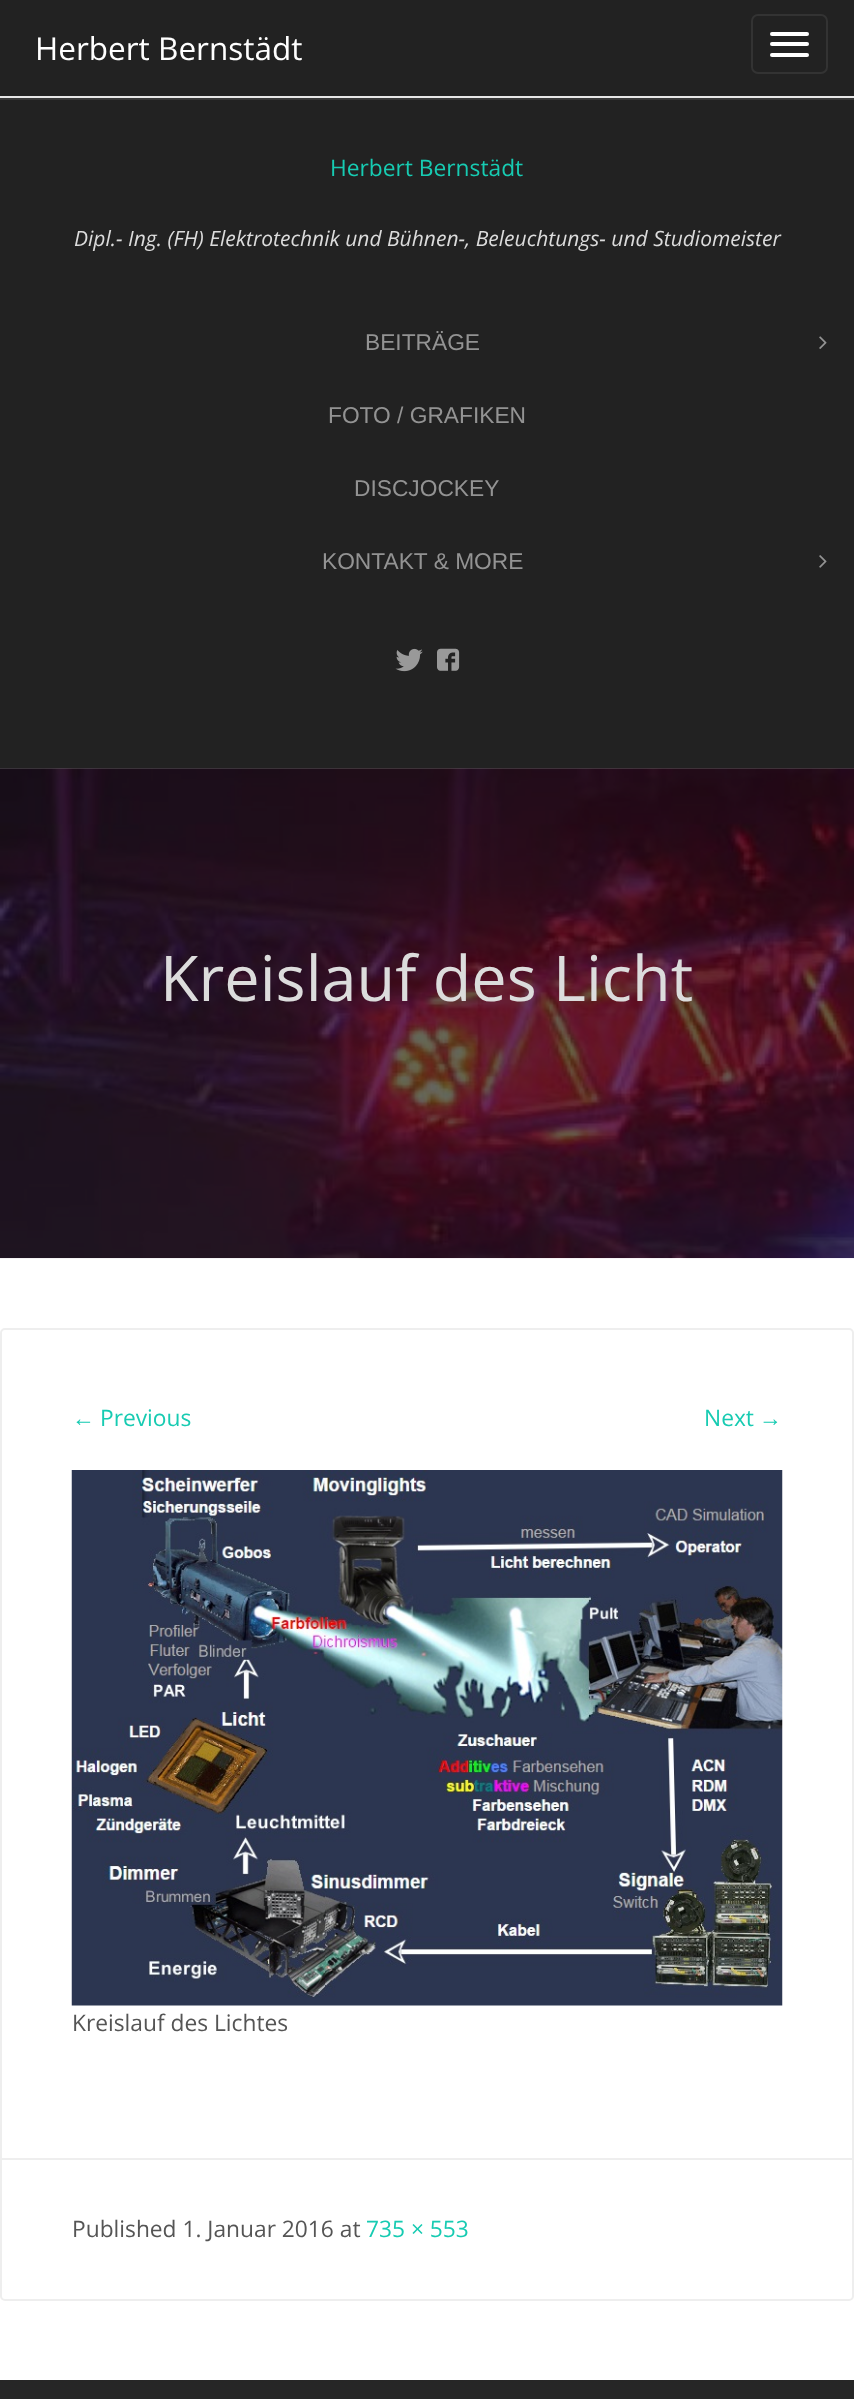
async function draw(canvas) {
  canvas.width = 854;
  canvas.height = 2399;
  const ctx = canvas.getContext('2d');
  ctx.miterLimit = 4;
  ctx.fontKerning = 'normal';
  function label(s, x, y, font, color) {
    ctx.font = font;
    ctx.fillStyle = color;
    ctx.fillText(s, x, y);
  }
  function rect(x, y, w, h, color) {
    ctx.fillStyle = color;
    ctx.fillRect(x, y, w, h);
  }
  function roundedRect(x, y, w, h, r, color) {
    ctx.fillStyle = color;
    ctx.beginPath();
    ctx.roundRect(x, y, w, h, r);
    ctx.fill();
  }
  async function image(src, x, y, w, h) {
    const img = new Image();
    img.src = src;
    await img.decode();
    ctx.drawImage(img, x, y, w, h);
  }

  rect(0, 0, 854, 2399, '#222');
  label('Herbert Bernstädt', 35, 60, '31.5px Open Sans', '#fff');
  ctx.beginPath();
  ctx.roundRect(752, 15, 75, 58, 6);
  ctx.strokeStyle = '#333';
  ctx.lineWidth = 2;
  ctx.stroke();
  roundedRect(770, 32, 39, 4, 2, '#fff');
  roundedRect(770, 42, 39, 4, 2, '#fff');
  roundedRect(770, 53, 39, 4, 2, '#fff');
  rect(0, 98, 854, 2, '#383838');
  rect(0, 96, 854, 2, '#e7e7e7');
  label('Herbert Bernstädt', 330, 176, '22.75px Open Sans', '#17cbb2');
  label('Dipl.- Ing. (FH) Elektrotechnik und Bühnen-, Beleuchtungs- und Studiomeister', 74, 246, 'italic 21px Open Sans', '#dcdcdc');
  label('BEITRÄGE', 365, 350, '22.75px Liberation Sans', '#939393');
  await image('assets/img1.png', 819, 336, 8, 13);
  label('FOTO / GRAFIKEN', 328, 423, '22.75px Liberation Sans', '#939393');
  label('DISCJOCKEY', 354, 496, '22.75px Liberation Sans', '#939393');
  label('KONTAKT & MORE', 322, 569, '22.75px Liberation Sans', '#939393');
  await image('assets/img2.png', 819, 555, 8, 13);
  await image('assets/img3.png', 395, 648, 28, 24);
  label('1', 437, 670, '22.75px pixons', '#999');
  rect(0, 1258, 854, 1122, '#fff');
  rect(0, 768, 854, 1, '#666');
  await image('assets/img4.png', 0, 768, 854, 491);
  label('Kreislauf des Licht', 160, 1001, '63px Open Sans', '#dcdcdc');
  ctx.beginPath();
  ctx.roundRect(1, 1329, 852, 971, 4);
  ctx.strokeStyle = '#eee';
  ctx.stroke();
  label('←', 72, 1426, '22.75px Liberation Sans', '#17cbb2');
  label('Previous', 100, 1426, '22.75px Open Sans', '#17cbb2');
  label('Next', 704, 1426, '22.75px Open Sans', '#17cbb2');
  label('→', 759, 1426, '22.75px Liberation Sans', '#17cbb2');
  await image('assets/img5.png', 71, 1470, 712, 536);
  label('Kreislauf des Lichtes', 72, 2031, '22.75px Open Sans', '#555');
  rect(2, 2158, 850, 2, '#eee');
  label('Published 1. Januar 2016 at', 72, 2237, '22.75px Open Sans', '#555');
  label('735 × 553', 366, 2237, '22.75px Open Sans', '#17cbb2');
  rect(0, 2380, 854, 19, '#262626');
}

draw(document.querySelector('canvas'));
